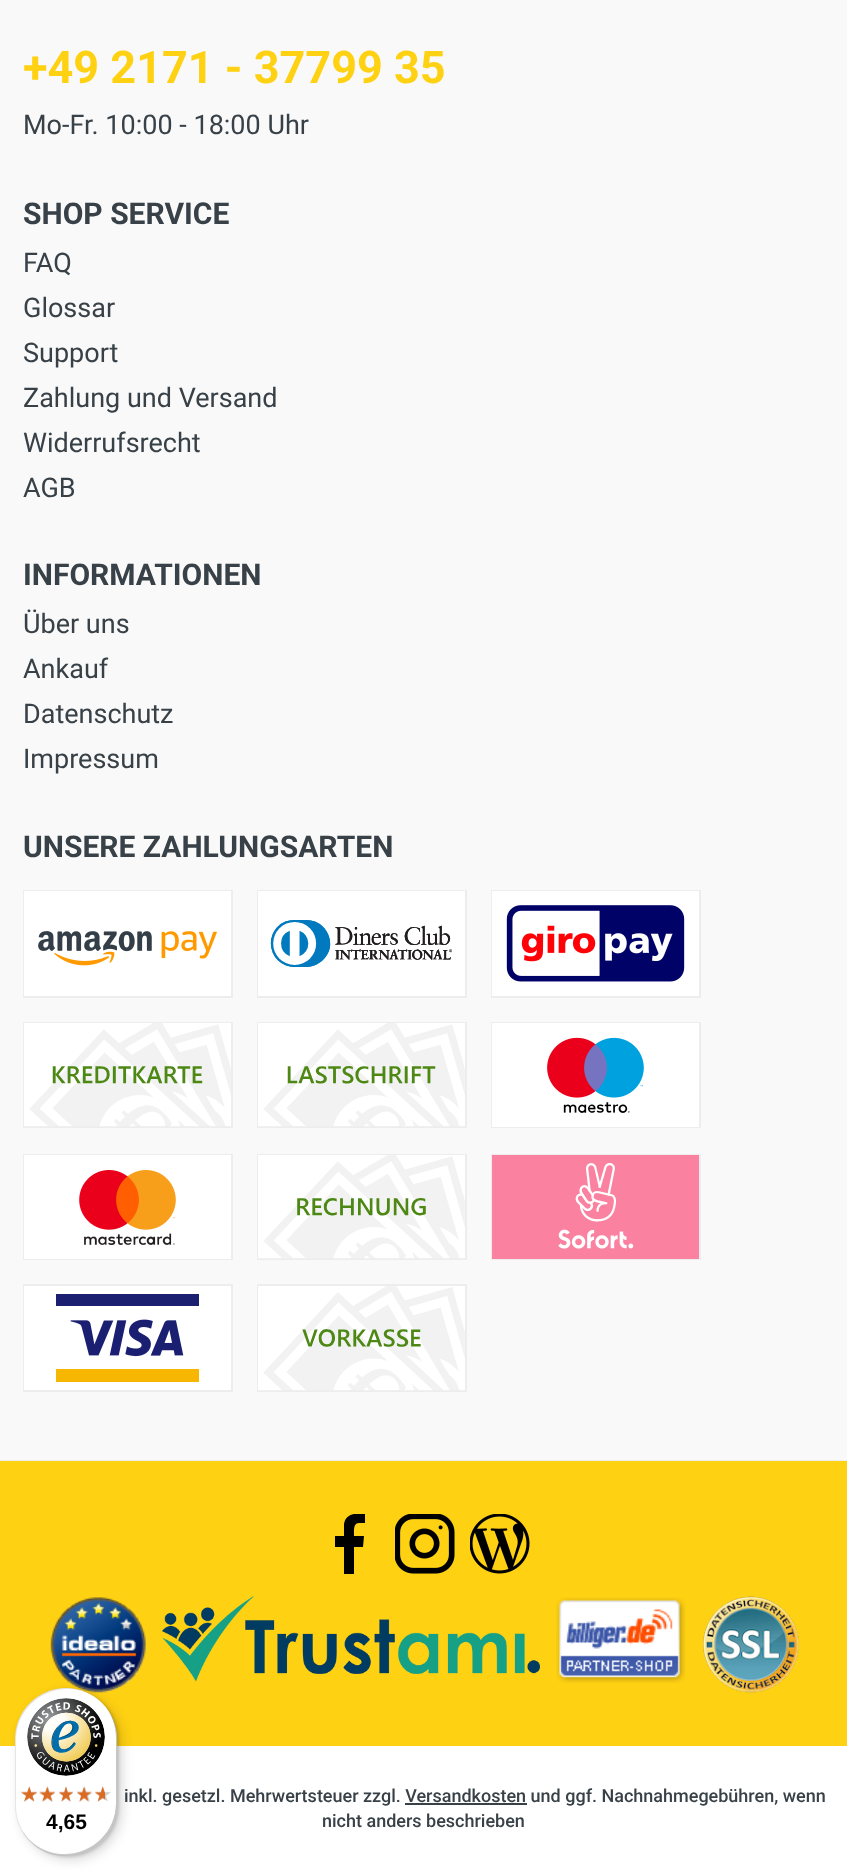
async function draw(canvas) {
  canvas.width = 847;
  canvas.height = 1870;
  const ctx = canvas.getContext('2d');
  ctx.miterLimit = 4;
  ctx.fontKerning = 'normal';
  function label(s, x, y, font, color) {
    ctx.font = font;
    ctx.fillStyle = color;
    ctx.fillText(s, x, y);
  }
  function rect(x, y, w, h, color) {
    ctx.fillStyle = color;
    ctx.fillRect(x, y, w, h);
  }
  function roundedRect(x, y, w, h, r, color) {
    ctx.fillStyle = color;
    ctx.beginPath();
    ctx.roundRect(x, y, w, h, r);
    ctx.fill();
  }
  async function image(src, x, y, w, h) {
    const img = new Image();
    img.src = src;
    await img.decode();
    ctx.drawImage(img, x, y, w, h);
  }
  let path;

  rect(0, 0, 847, 1870, '#f9f9f9');
  label('+49 2171 - 37799 35', 23, 83, 'bold 45px Roboto', '#ffd113');
  label('Mo-Fr. 10:00 - 18:00 Uhr', 23, 134, '27px Roboto', '#384147');
  label('SHOP SERVICE', 23, 224, 'bold 30px Roboto', '#384147');
  label('FAQ', 23, 272, '27px Roboto', '#384147');
  label('Glossar', 23, 317, '27px Roboto', '#384147');
  label('Support', 23, 362, '27px Roboto', '#384147');
  label('Zahlung und Versand', 23, 407, '27px Roboto', '#384147');
  label('Widerrufsrecht', 23, 452, '27px Roboto', '#384147');
  label('AGB', 23, 497, '27px Roboto', '#384147');
  label('INFORMATIONEN', 23, 585, 'bold 30px Roboto', '#384147');
  label('Über uns', 23, 633, '27px Roboto', '#384147');
  label('Ankauf', 23, 678, '27px Roboto', '#384147');
  label('Datenschutz', 23, 723, '27px Roboto', '#384147');
  label('Impressum', 23, 768, '27px Roboto', '#384147');
  label('UNSERE ZAHLUNGSARTEN', 23, 857, 'bold 30px Roboto', '#384147');
  ctx.strokeStyle = '#ededed';
  ctx.lineWidth = 2;
  ctx.strokeRect(24, 891, 208, 106);
  await image('assets/img1.png', 24, 891, 207, 105);
  ctx.strokeRect(258, 891, 208, 106);
  await image('assets/img2.png', 258, 891, 207, 105);
  ctx.strokeRect(492, 891, 208, 106);
  await image('assets/img3.png', 492, 891, 207, 105);
  ctx.strokeRect(24, 1023, 208, 104);
  await image('assets/img4.png', 24, 1023, 207, 104);
  ctx.strokeRect(258, 1023, 208, 104);
  await image('assets/img5.png', 258, 1023, 207, 104);
  ctx.strokeRect(492, 1023, 208, 104);
  await image('assets/img6.png', 492, 1023, 207, 104);
  ctx.strokeRect(24, 1155, 208, 104);
  await image('assets/img7.png', 24, 1155, 207, 104);
  ctx.strokeRect(258, 1155, 208, 104);
  await image('assets/img8.png', 258, 1155, 207, 104);
  ctx.strokeRect(492, 1155, 208, 104);
  await image('assets/img9.png', 492, 1155, 207, 104);
  ctx.strokeRect(24, 1285, 208, 106);
  await image('assets/img10.png', 24, 1286, 207, 104);
  ctx.strokeRect(258, 1285, 208, 106);
  await image('assets/img11.png', 258, 1286, 207, 105);
  rect(0, 1746, 847, 124, '#fff');
  rect(0, 1460, 847, 1, '#eee');
  rect(0, 1461, 847, 285, '#ffd113');
  ctx.save();
  ctx.beginPath();
  ctx.rect(320, 1514, 60, 60);
  ctx.clip();
  ctx.fillStyle = '#000';
  path = new Path2D('M359 1523H365V1514C356 1513 346 1513 344 1524V1536H335V1547H344V1574H354V1547H363L364 1536H354C354 1531 353 1523 359 1523Z');
  ctx.fill(path);
  ctx.restore();
  await image('assets/img12.png', 395, 1514, 60, 60);
  await image('assets/img13.png', 470, 1514, 60, 60);
  await image('assets/img14.png', 50, 1597, 96, 96);
  await image('assets/img15.png', 162, 1596, 378, 86);
  await image('assets/img16.png', 556, 1597, 130, 86);
  await image('assets/img17.png', 703, 1596, 96, 97);
  label('inkl. gesetzl. Mehrwertsteuer zzgl. Versandkosten und ggf. Nachnahmegebühren, wenn', 124, 1802, '500 18px Roboto', '#384147');
  rect(405, 1803, 122, 2, '#384147');
  label('nicht anders beschrieben', 322, 1827, '500 18px Roboto', '#384147');
  ctx.fillStyle = '#00000026';
  ctx.filter = 'blur(6px)';
  ctx.beginPath();
  ctx.roundRect(20, 1692, 102, 168, 51);
  ctx.fill();
  ctx.filter = 'none';
  ctx.filter = 'blur(1.5px)';
  ctx.beginPath();
  ctx.roundRect(17, 1689, 102, 168, 51);
  ctx.fill();
  ctx.filter = 'none';
  roundedRect(15, 1688, 102, 168, 51, '#fff');
  ctx.fillStyle = '#0000001a';
  path = new Path2D('M68 1689C78 1689 86 1692 94 1696C86 1691 76 1688 66 1688C38 1688 15 1711 15 1739V1805C15 1822 23 1837 36 1846C24 1837 16 1822 16 1806V1740C16 1712 39 1689 68 1689Z');
  ctx.fill(path);
  ctx.fillStyle = '#00000033';
  path = new Path2D('M22 1830C30 1846 47 1856 66 1856C94 1856 117 1833 117 1805V1739C117 1730 115 1721 110 1714C114 1721 116 1729 116 1737V1803C116 1831 93 1854 64 1854C46 1854 30 1844 22 1830Z');
  ctx.fill(path);
  ctx.fillStyle = '#32323233';
  path = new Path2D('M27 1838C37 1849 51 1856 66 1856C94 1856 117 1833 117 1805V1739C117 1727 113 1716 106 1707C112 1716 116 1726 116 1738V1804C116 1832 93 1855 65 1855C50 1855 37 1849 27 1838Z');
  ctx.fill(path);
  ctx.fillStyle = '#ffffff4d';
  path = new Path2D('M27 1838C37 1849 51 1856 66 1856C94 1856 117 1833 117 1805V1739C117 1724 110 1710 99 1700C110 1710 116 1723 116 1738V1804C116 1832 93 1855 65 1855C50 1855 37 1849 27 1838Z');
  ctx.fill(path);
  await image('assets/img18.png', 27, 1698, 78, 78);
  await image('assets/img19.png', 21, 1787, 16, 14);
  await image('assets/img20.png', 41, 1787, 14, 15);
  await image('assets/img21.png', 59, 1787, 14, 14);
  await image('assets/img22.png', 77, 1786, 16, 16);
  await image('assets/img23.png', 95, 1787, 16, 14);
  await image('assets/img24.png', 21, 1786, 16, 16);
  await image('assets/img25.png', 39, 1786, 16, 16);
  await image('assets/img26.png', 59, 1786, 14, 16);
  await image('assets/img27.png', 77, 1786, 14, 16);
  await image('assets/img28.png', 95, 1786, 10, 16);
  label('4,65', 46, 1829, 'bold 21px Liberation Sans', '#000');
}

draw(document.querySelector('canvas'));
